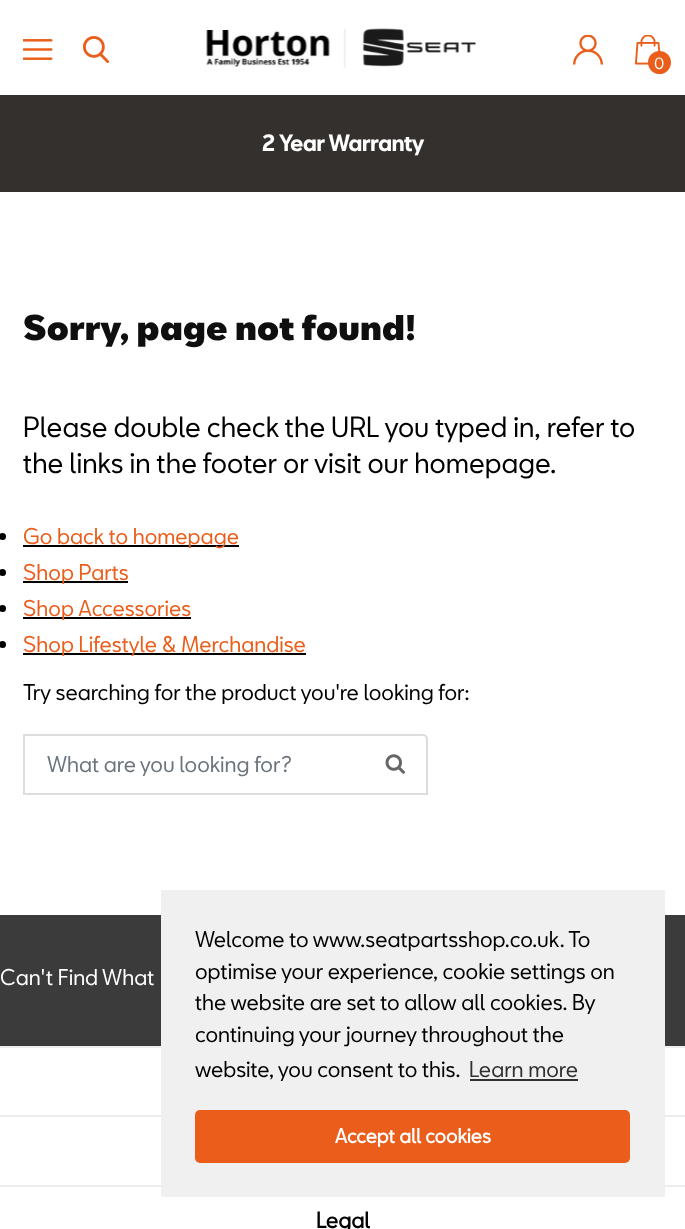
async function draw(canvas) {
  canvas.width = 685;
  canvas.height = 1229;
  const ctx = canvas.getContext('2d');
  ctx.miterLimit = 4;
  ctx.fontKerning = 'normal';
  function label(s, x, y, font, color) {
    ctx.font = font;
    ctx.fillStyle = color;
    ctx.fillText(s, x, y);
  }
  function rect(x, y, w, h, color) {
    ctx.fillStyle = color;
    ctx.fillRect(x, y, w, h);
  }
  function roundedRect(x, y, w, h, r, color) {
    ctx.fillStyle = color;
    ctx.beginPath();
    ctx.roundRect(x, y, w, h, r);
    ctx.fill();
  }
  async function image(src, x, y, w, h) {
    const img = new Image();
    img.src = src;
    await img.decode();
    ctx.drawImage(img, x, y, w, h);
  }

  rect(0, 0, 685, 1229, '#fff');
  await image('assets/img1.png', 23, 39, 30, 21);
  await image('assets/img2.png', 83, 36, 26, 27);
  await image('assets/img3.png', 206, 28, 270, 40);
  await image('assets/img4.png', 573, 35, 30, 30);
  await image('assets/img5.png', 635, 35, 26, 30);
  ctx.fillStyle = '#ea5d1a';
  ctx.beginPath();
  ctx.arc(659.5, 62.5, 11.5, 0, 2 * Math.PI);
  ctx.fill();
  label('0', 654, 69, '15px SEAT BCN', '#fff');
  rect(0, 95, 685, 97, '#33302e');
  label('2 Year Warranty', 262, 151, 'bold 21px SEAT BCN', '#fff');
  label('Sorry, page not found!', 23, 340, '900 33px SEAT BCN', '#0f0f0f');
  label('Please double check the URL you typed in, refer to', 23, 437, '27px SEAT BCN', '#000');
  label('the links in the footer or visit our homepage.', 23, 473, '27px SEAT BCN', '#000');
  ctx.beginPath();
  ctx.arc(2.5, 536.5, 3.5, 0, 2 * Math.PI);
  ctx.fill();
  rect(23, 545, 216, 2, '#000');
  label('Go back to homepage', 23, 544, '21px SEAT BCN', '#ea5d1a');
  ctx.fillStyle = '#000';
  ctx.beginPath();
  ctx.arc(2.5, 572.5, 3.5, 0, 2 * Math.PI);
  ctx.fill();
  rect(23, 581, 105, 2, '#000');
  label('Shop Parts', 23, 580, '21px SEAT BCN', '#ea5d1a');
  ctx.fillStyle = '#000';
  ctx.beginPath();
  ctx.arc(2.5, 608.5, 3.5, 0, 2 * Math.PI);
  ctx.fill();
  rect(23, 617, 168, 2, '#000');
  label('Shop Accessories', 23, 616, '21px SEAT BCN', '#ea5d1a');
  ctx.fillStyle = '#000';
  ctx.beginPath();
  ctx.arc(2.5, 644.5, 3.5, 0, 2 * Math.PI);
  ctx.fill();
  rect(23, 653, 283, 2, '#000');
  label('Shop Lifestyle & Merchandise', 23, 652, '21px SEAT BCN', '#ea5d1a');
  label('Try searching for the product you\'re looking for:', 23, 700, '21px SEAT BCN', '#000');
  ctx.beginPath();
  ctx.roundRect(24, 735, 403, 59, [0, 4, 0, 0]);
  ctx.strokeStyle = '#ddd';
  ctx.lineWidth = 2;
  ctx.stroke();
  label('What are you looking for?', 47, 772, '21px SEAT BCN', '#6c757d');
  await image('assets/img6.png', 385, 754, 20, 20);
  rect(0, 915, 685, 131, '#3b3b3b');
  label('Can\'t Find What', 0, 985, '21px SEAT BCN', '#fff');
  rect(0, 1046, 685, 2, '#ededed');
  rect(0, 1115, 685, 2, '#ededed');
  rect(0, 1185, 685, 2, '#ededed');
  label('Legal', 316, 1228, 'bold 21px "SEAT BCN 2"', '#000');
  rect(161, 890, 504, 307, '#f0f0f0');
  label('Welcome to www.seatpartsshop.co.uk. To', 195, 947, '21px SEAT BCN', '#000');
  label('optimise your experience, cookie settings on', 195, 979, '21px SEAT BCN', '#000');
  label('the website are set to allow all cookies. By', 195, 1010, '21px SEAT BCN', '#000');
  label('continuing your journey throughout the', 195, 1042, '21px SEAT BCN', '#000');
  label('website, you consent to this.', 195, 1077, '21px SEAT BCN', '#000');
  label('Learn more', 469, 1077, '21px SEAT BCN', '#303030');
  rect(470, 1079, 108, 2, '#303030');
  roundedRect(195, 1110, 435, 53, 5, '#ea5d1a');
  label('Accept all cookies', 335, 1143, 'bold 19px "SEAT BCN 2"', '#fff');
}

draw(document.querySelector('canvas'));
